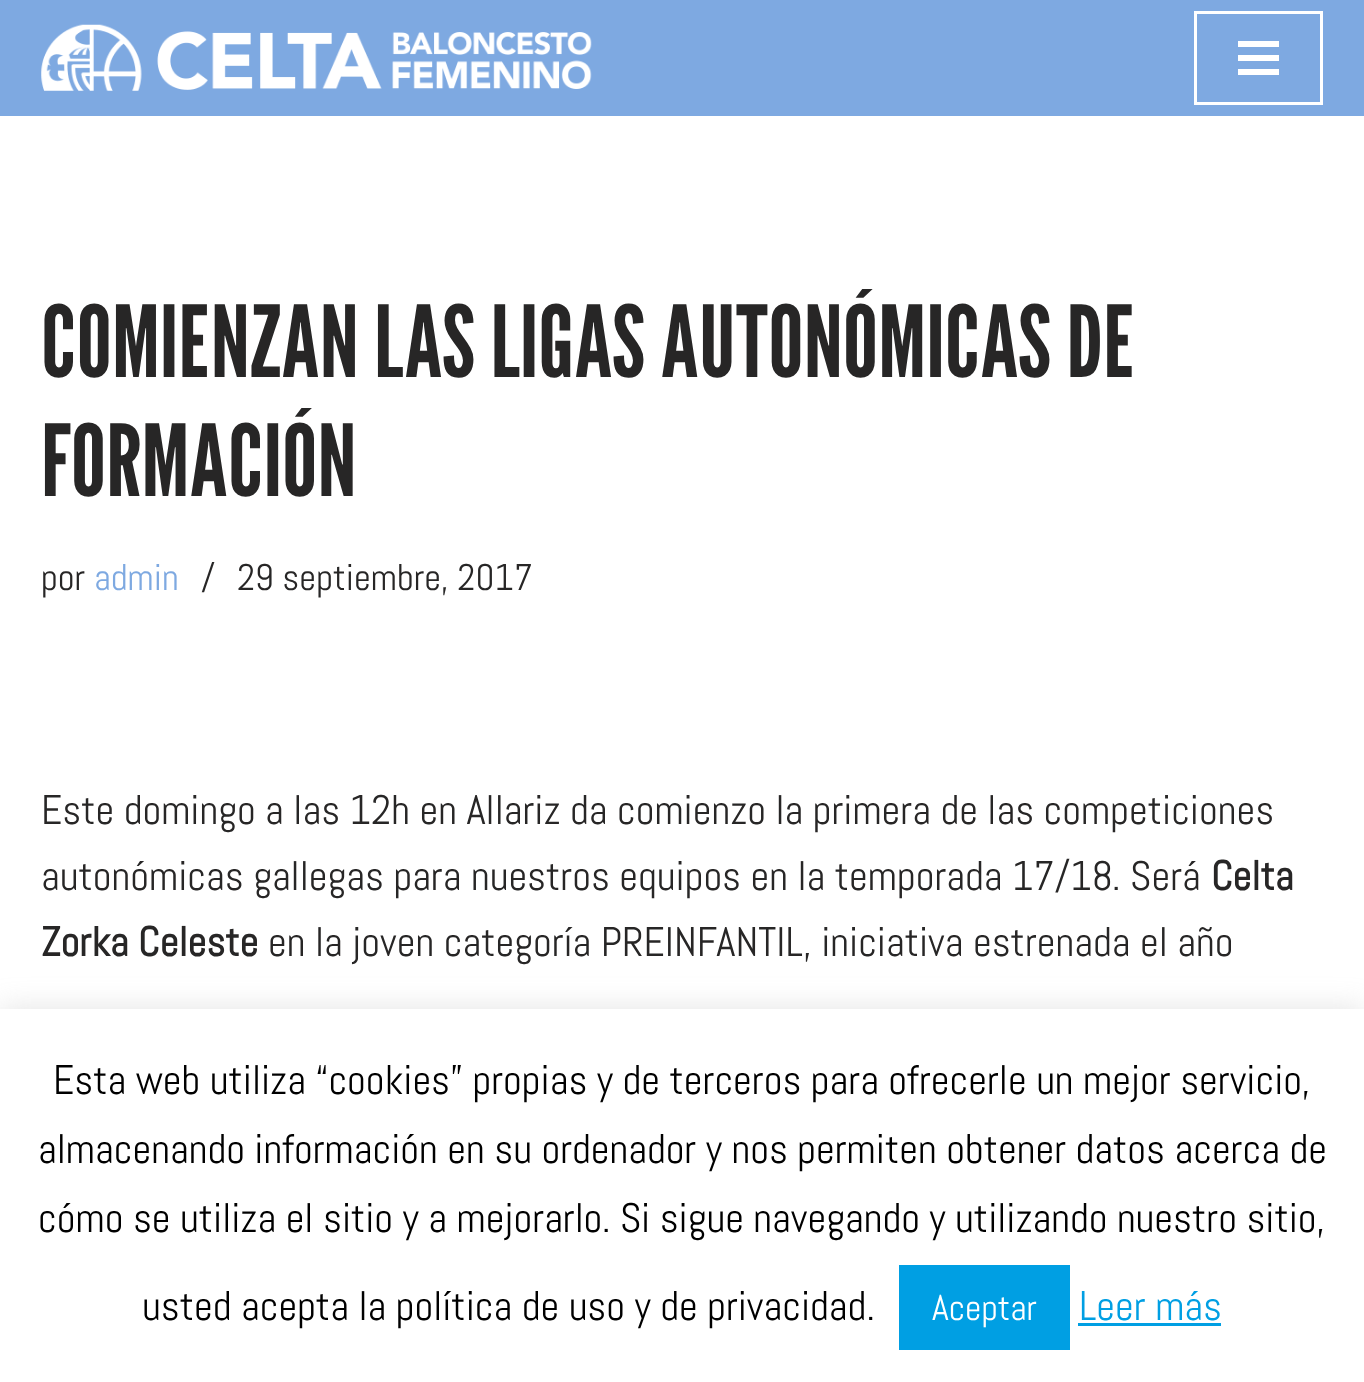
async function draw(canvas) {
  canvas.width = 1364;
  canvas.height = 1382;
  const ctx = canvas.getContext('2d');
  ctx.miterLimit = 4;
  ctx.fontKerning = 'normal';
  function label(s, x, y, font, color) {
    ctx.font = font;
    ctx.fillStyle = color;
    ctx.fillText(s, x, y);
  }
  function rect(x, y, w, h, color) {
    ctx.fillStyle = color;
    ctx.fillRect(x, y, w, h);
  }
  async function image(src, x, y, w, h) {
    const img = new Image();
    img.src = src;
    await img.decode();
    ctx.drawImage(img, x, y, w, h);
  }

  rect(0, 0, 1364, 1382, '#fff');
  rect(0, 0, 1364, 116, '#7ea9e1');
  await image('assets/img1.png', 41, 24, 551, 67);
  ctx.strokeStyle = '#fff';
  ctx.lineWidth = 3;
  ctx.strokeRect(1195.5, 12.5, 126, 91);
  rect(1238, 41, 41, 6, '#fff');
  rect(1238, 55, 41, 6, '#fff');
  rect(1238, 69, 41, 6, '#fff');
  label('COMIENZAN LAS LIGAS AUTONÓMICAS DE', 41, 377, '99px League Gothic', '#272626');
  label('FORMACIÓN', 41, 496, '99px League Gothic', '#272626');
  label('por', 41, 590, '37px Abel', '#272626');
  label('admin', 94, 590, '37px Abel', '#7ea9e1');
  label('/', 201, 590, '37px Abel', '#272626');
  label('29 septiembre, 2017', 237, 590, '37px Abel', '#272626');
  label('Este domingo a las 12h en Allariz da comienzo la primera de las competiciones', 41, 824, '41.25px Abel', '#272626');
  label('autonómicas gallegas para nuestros equipos en la temporada 17/18. Será', 41, 890, '41.25px Abel', '#272626');
  label('Celta', 1211, 890, 'bold 41.25px Abel', '#272626');
  label('Zorka Celeste', 41, 956, 'bold 41.25px Abel', '#272626');
  label('en la joven categoría PREINFANTIL, iniciativa estrenada el año', 268, 956, '41.25px Abel', '#272626');
  ctx.fillStyle = '#acabab4d';
  ctx.filter = 'blur(14px)';
  ctx.beginPath();
  ctx.rect(0, 1007, 1364, 374);
  ctx.fill();
  ctx.filter = 'none';
  rect(0, 1009, 1364, 373, '#fff');
  label('Esta web utiliza “cookies” propias y de terceros para ofrecerle un mejor servicio,', 53, 1094, '41.25px Abel', '#000');
  label('almacenando información en su ordenador y nos permiten obtener datos acerca de', 38, 1163, '41.25px Abel', '#000');
  label('cómo se utiliza el sitio y a mejorarlo. Si sigue navegando y utilizando nuestro sitio,', 38, 1232, '41.25px Abel', '#000');
  label('usted acepta la política de uso y de privacidad.', 142, 1320, '41.25px Abel', '#000');
  rect(899, 1265, 171, 85, '#009fe3');
  label('Aceptar', 932, 1320, '36px Abel', '#fff');
  label('Leer más', 1079, 1320, '41.25px Abel', '#009fe3');
  rect(1078, 1323, 143, 3, '#009fe3');
}

draw(document.querySelector('canvas'));
